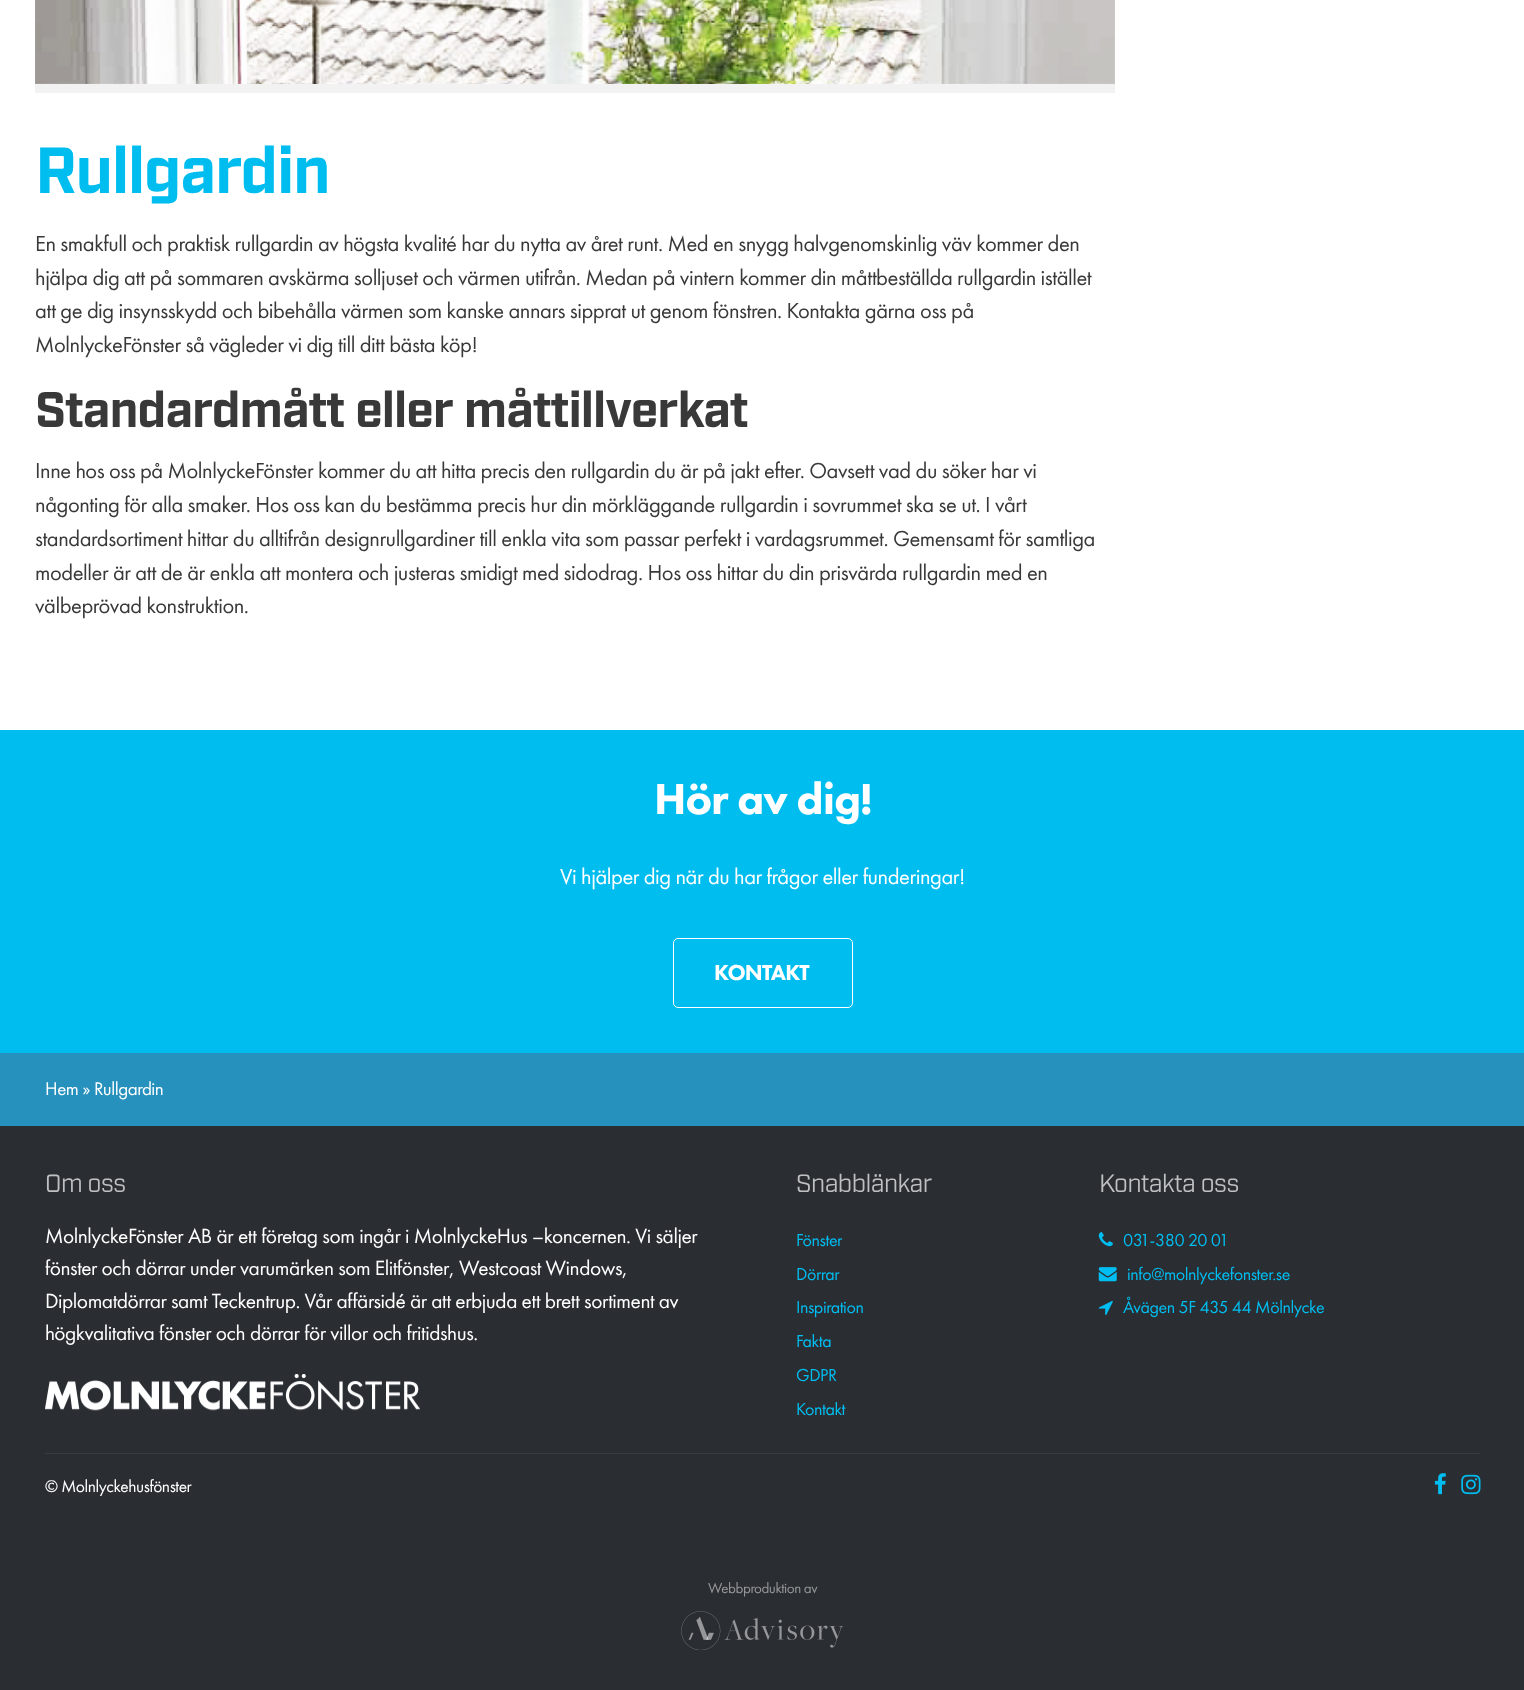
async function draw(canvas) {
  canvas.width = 1524;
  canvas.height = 1690;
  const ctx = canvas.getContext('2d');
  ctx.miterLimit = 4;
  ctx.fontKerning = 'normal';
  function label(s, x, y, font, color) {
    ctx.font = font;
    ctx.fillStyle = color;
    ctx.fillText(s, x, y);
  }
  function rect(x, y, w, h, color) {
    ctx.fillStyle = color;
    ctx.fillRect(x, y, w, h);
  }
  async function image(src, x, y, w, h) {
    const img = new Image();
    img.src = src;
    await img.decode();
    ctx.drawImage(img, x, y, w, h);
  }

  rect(0, 0, 1524, 1690, '#fff');
  rect(35, 84, 1080, 9, '#f2f2f2');
  await image('assets/img1.png', 35, 0, 1080, 84);
  ctx.letterSpacing = '-1.25px';
  label('Rullgardin', 35, 193, 'bold 65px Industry', '#00bdf0');
  ctx.letterSpacing = '-0.45px';
  label('En smakfull och praktisk rullgardin av högsta kvalité har du nytta av året runt. Med en snygg halvgenomskinlig väv kommer den', 35, 251, '22.5px Futura PT', '#393939');
  label('hjälpa dig att på sommaren avskärma solljuset och värmen utifrån. Medan på vintern kommer din måttbeställda rullgardin istället', 35, 285, '22.5px Futura PT', '#393939');
  label('att ge dig insynsskydd och bibehålla värmen som kanske annars sipprat ut genom fönstren. Kontakta gärna oss på', 35, 318, '22.5px Futura PT', '#393939');
  label('MolnlyckeFönster så vägleder vi dig till ditt bästa köp!', 35, 352, '22.5px Futura PT', '#393939');
  ctx.letterSpacing = '-1px';
  label('Standardmått eller måttillverkat', 35, 427, 'bold 50px Industry', '#393939');
  ctx.letterSpacing = '-0.45px';
  label('Inne hos oss på MolnlyckeFönster kommer du att hitta precis den rullgardin du är på jakt efter. Oavsett vad du söker har vi', 35, 478, '22.5px Futura PT', '#393939');
  label('någonting för alla smaker. Hos oss kan du bestämma precis hur din mörkläggande rullgardin i sovrummet ska se ut. I vårt', 35, 512, '22.5px Futura PT', '#393939');
  label('standardsortiment hittar du alltifrån designrullgardiner till enkla vita som passar perfekt i vardagsrummet. Gemensamt för samtliga', 35, 546, '22.5px Futura PT', '#393939');
  label('modeller är att de är enkla att montera och justeras smidigt med sidodrag. Hos oss hittar du din prisvärda rullgardin med en', 35, 580, '22.5px Futura PT', '#393939');
  label('välbeprövad konstruktion.', 35, 613, '22.5px Futura PT', '#393939');
  rect(0, 730, 1524, 323, '#00bdf0');
  ctx.letterSpacing = '-0.9px';
  label('Hör av dig!', 654, 814, '900 45px Futura PT', '#fff');
  ctx.letterSpacing = '-0.45px';
  label('Vi hjälper dig när du har frågor eller funderingar!', 560, 884, '22.5px Futura PT', '#fff');
  ctx.beginPath();
  ctx.roundRect(673.5, 938.5, 179, 69, 4.5);
  ctx.strokeStyle = '#fff';
  ctx.stroke();
  ctx.letterSpacing = '-0.75px';
  label('KONTAKT', 714, 980, '900 22.5px Futura PT', '#fff');
  rect(0, 1053, 1524, 73, '#2791bd');
  ctx.letterSpacing = '-0.45px';
  label('Hem » Rullgardin', 45, 1095, '19px Futura PT', '#fff');
  rect(0, 1126, 1524, 564, '#2a2e33');
  ctx.letterSpacing = '-0.5px';
  label('Om oss', 45, 1192, '25px Industry', '#bfc0c2');
  ctx.letterSpacing = '-0.45px';
  ctx.wordSpacing = '0.25px';
  label('MolnlyckeFönster AB är ett företag som ingår i MolnlyckeHus –koncernen. Vi säljer', 45, 1243, '21.4px Futura PT', '#fff');
  ctx.wordSpacing = '0.1px';
  label('fönster och dörrar under varumärken som Elitfönster, Westcoast Windows,', 45, 1275, '21.4px Futura PT', '#fff');
  label('Diplomatdörrar samt Teckentrup. Vår affärsidé är att erbjuda ett brett sortiment av', 45, 1308, '21.4px Futura PT', '#fff');
  ctx.wordSpacing = '0.25px';
  label('högkvalitativa fönster och dörrar för villor och fritidshus.', 45, 1340, '21.4px Futura PT', '#fff');
  await image('assets/img2.png', 45, 1374, 375, 37);
  ctx.letterSpacing = '-0.5px';
  ctx.wordSpacing = '0px';
  label('Snabblänkar', 796, 1192, '25px Industry', '#bfc0c2');
  ctx.letterSpacing = '-0.45px';
  label('Fönster', 796, 1246, '18px Futura PT', '#00bdf0');
  label('Dörrar', 796, 1280, '18px Futura PT', '#00bdf0');
  label('Inspiration', 796, 1313, '18px Futura PT', '#00bdf0');
  label('Fakta', 796, 1347, '18px Futura PT', '#00bdf0');
  label('GDPR', 796, 1381, '18px Futura PT', '#00bdf0');
  label('Kontakt', 796, 1415, '18px Futura PT', '#00bdf0');
  ctx.letterSpacing = '-0.5px';
  label('Kontakta oss', 1099, 1192, '25px Industry', '#bfc0c2');
  await image('assets/img3.png', 1098, 1232, 15, 15);
  ctx.letterSpacing = '-0.45px';
  label('031-380 20 01', 1123, 1246, '18px Futura PT', '#00bdf0');
  await image('assets/img4.png', 1098, 1267, 19, 15);
  label('info@molnlyckefonster.se', 1127, 1280, '18px Futura PT', '#00bdf0');
  await image('assets/img5.png', 1098, 1300, 15, 15);
  label('Åvägen 5F 435 44 Mölnlycke', 1123, 1313, '18px Futura PT', '#00bdf0');
  rect(45, 1453, 1435, 1, '#393d41');
  label('© Molnlyckehusfönster', 45, 1492, '17.5px Futura PT', '#fff');
  await image('assets/img6.png', 1434, 1473, 12, 22);
  await image('assets/img7.png', 1461, 1474, 20, 21);
  label('Webbproduktion av', 708, 1593, '15px Futura PT', '#959799');
  await image('assets/img8.png', 681, 1611, 163, 39);
}

draw(document.querySelector('canvas'));
